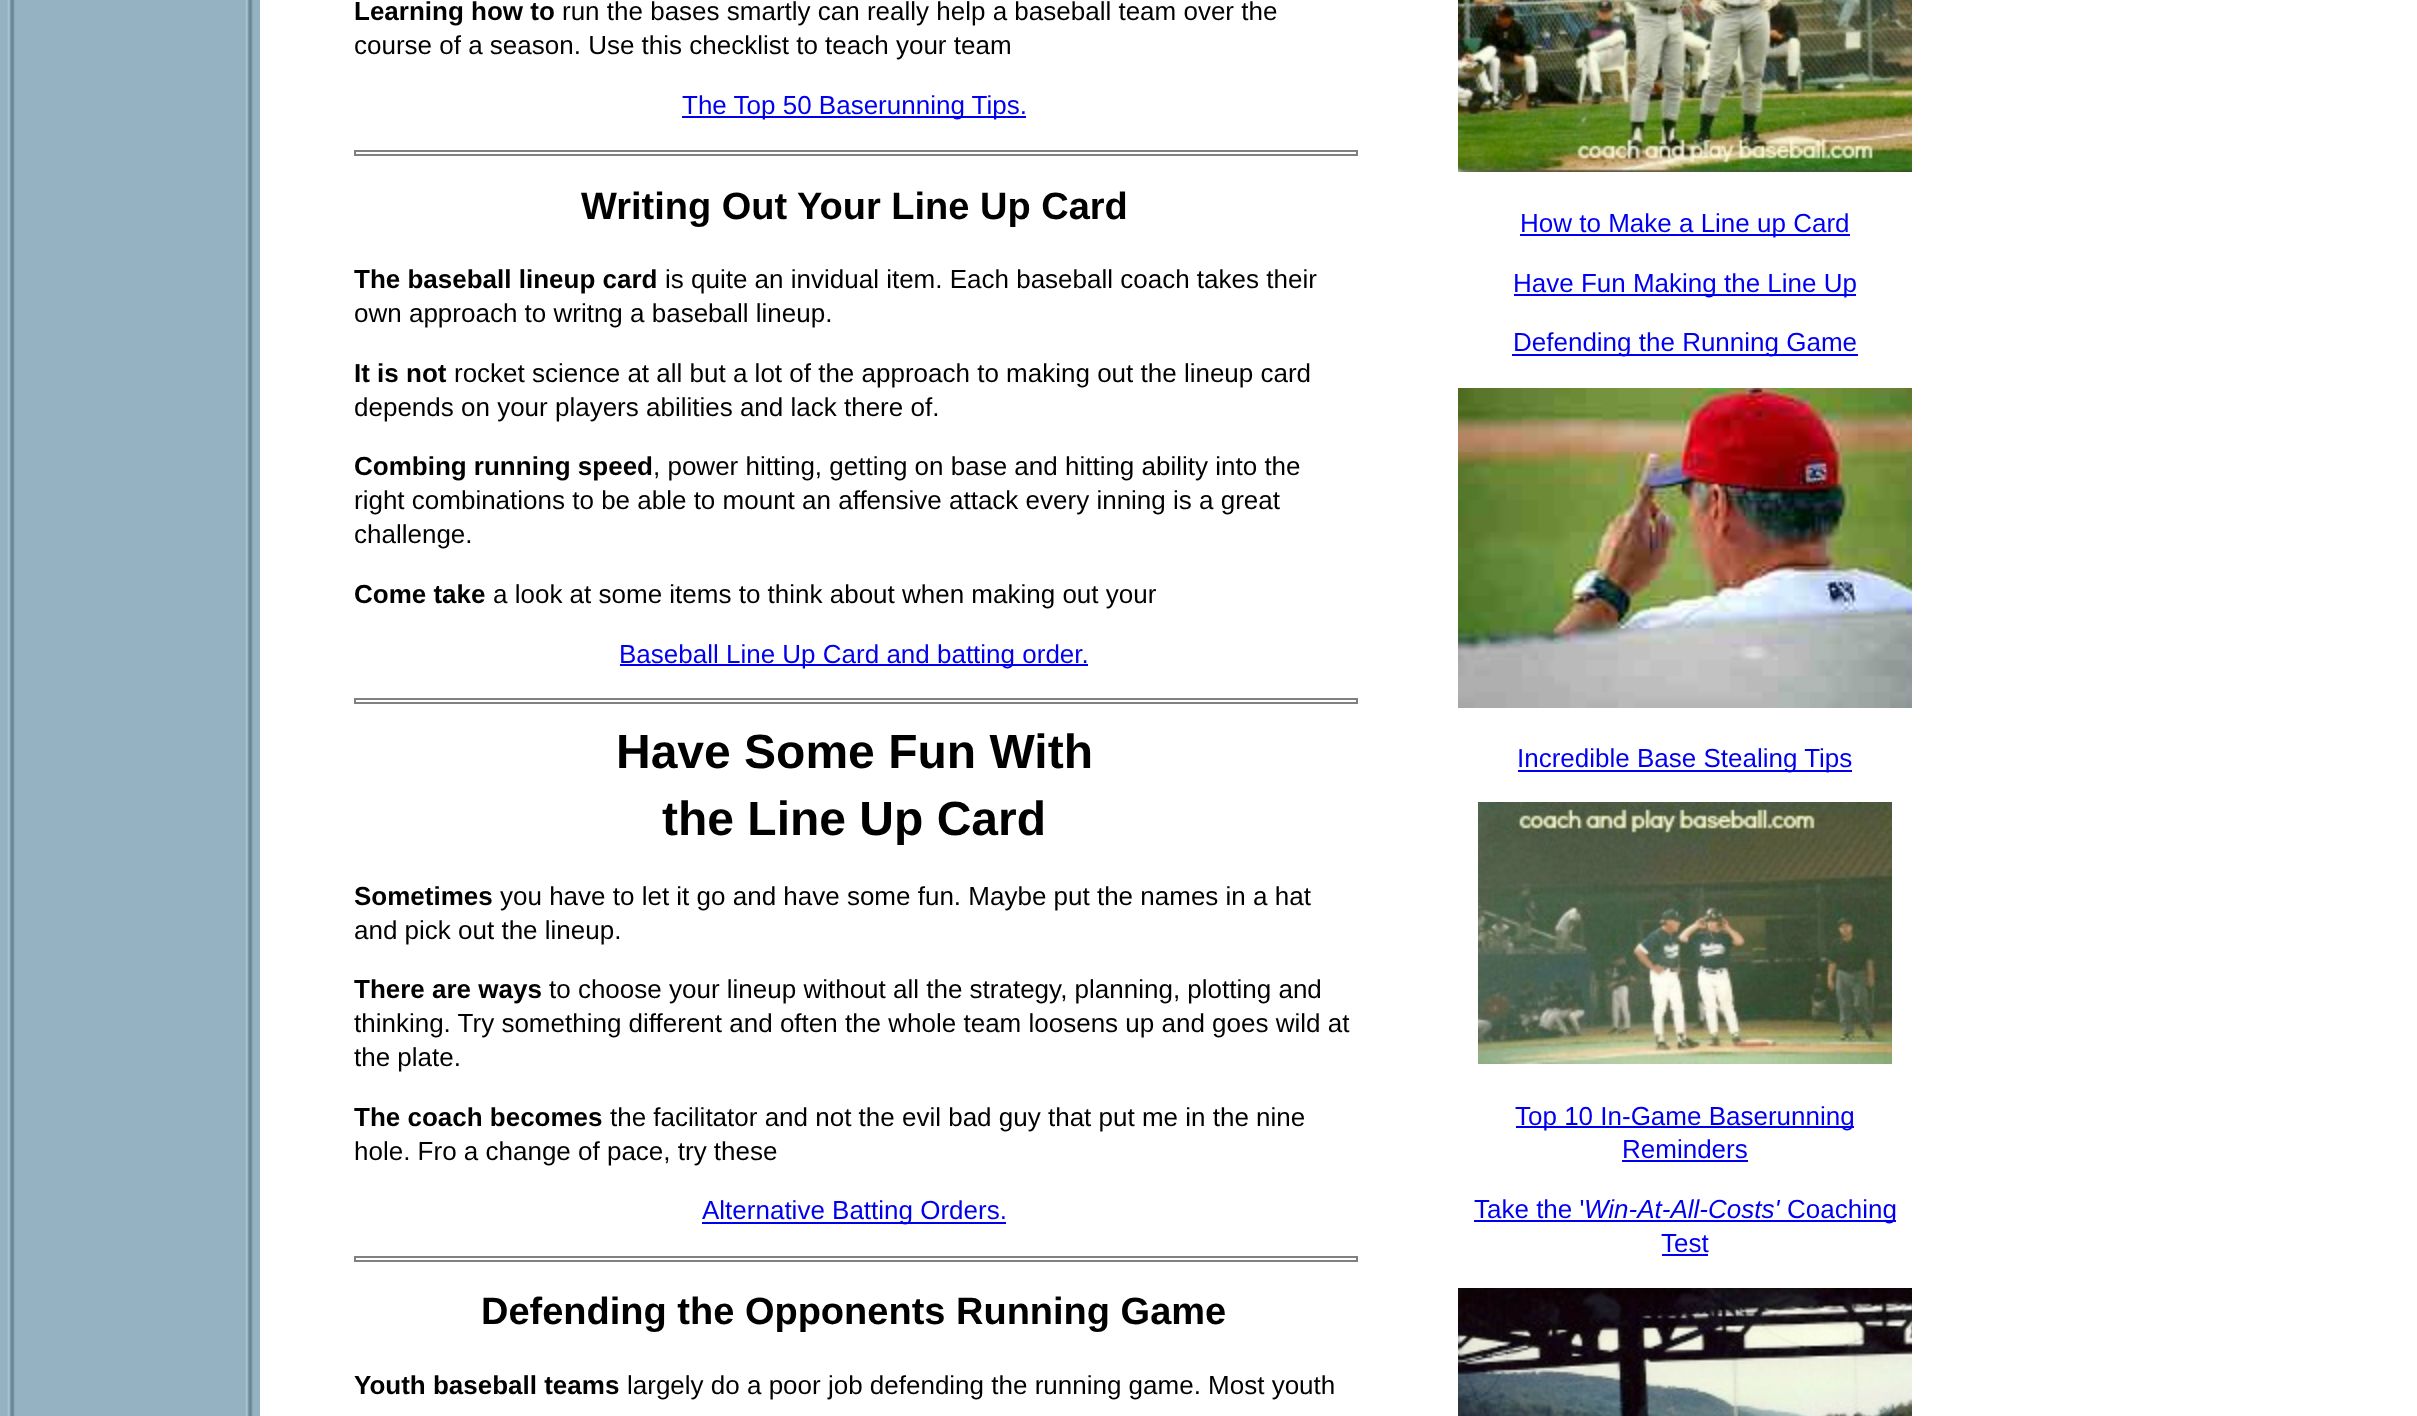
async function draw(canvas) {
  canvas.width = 2417;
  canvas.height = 1416;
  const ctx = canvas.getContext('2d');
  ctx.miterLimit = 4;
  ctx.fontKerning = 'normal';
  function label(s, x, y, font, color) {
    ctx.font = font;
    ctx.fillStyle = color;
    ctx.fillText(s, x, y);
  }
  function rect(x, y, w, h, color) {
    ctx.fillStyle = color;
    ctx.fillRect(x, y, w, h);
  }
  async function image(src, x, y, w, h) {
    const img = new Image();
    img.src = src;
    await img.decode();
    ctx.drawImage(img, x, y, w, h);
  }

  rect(0, 0, 2417, 1416, '#fff');
  await image('assets/img1.png', 0, 0, 260, 1416);
  label('Learning how to', 354, 20, 'bold 26px Liberation Sans', '#000');
  label('run the bases smartly can really help a baseball team over the', 562, 20, '26px Liberation Sans', '#000');
  label('course of a season. Use this checklist to teach your team', 354, 54, '26px Liberation Sans', '#000');
  rect(682, 116, 344, 2, '#00e');
  label('The Top 50 Baserunning Tips.', 682, 114, '26px Liberation Sans', '#00e');
  ctx.strokeStyle = '#808080';
  ctx.lineWidth = 2;
  ctx.strokeRect(355, 151, 1002, 4);
  label('Writing Out Your Line Up Card', 581, 219, 'bold 38px Liberation Sans', '#000');
  label('The baseball lineup card', 354, 288, 'bold 26px Liberation Sans', '#000');
  label('is quite an invidual item. Each baseball coach takes their', 665, 288, '26px Liberation Sans', '#000');
  label('own approach to writng a baseball lineup.', 354, 322, '26px Liberation Sans', '#000');
  label('It is not', 354, 382, 'bold 26px Liberation Sans', '#000');
  label('rocket science at all but a lot of the approach to making out the lineup card', 454, 382, '26px Liberation Sans', '#000');
  label('depends on your players abilities and lack there of.', 354, 416, '26px Liberation Sans', '#000');
  label('Combing running speed', 354, 475, 'bold 26px Liberation Sans', '#000');
  label(', power hitting, getting on base and hitting ability into the', 653, 475, '26px Liberation Sans', '#000');
  label('right combinations to be able to mount an affensive attack every inning is a great', 354, 509, '26px Liberation Sans', '#000');
  label('challenge.', 354, 543, '26px Liberation Sans', '#000');
  label('Come take', 354, 603, 'bold 26px Liberation Sans', '#000');
  label('a look at some items to think about when making out your', 493, 603, '26px Liberation Sans', '#000');
  rect(620, 664, 468, 2, '#00e');
  label('Baseball Line Up Card and batting order.', 619, 663, '26px Liberation Sans', '#00e');
  ctx.strokeRect(355, 699, 1002, 4);
  label('Have Some Fun With', 616, 768, 'bold 48px Liberation Sans', '#000');
  label('the Line Up Card', 662, 835, 'bold 48px Liberation Sans', '#000');
  label('Sometimes', 354, 905, 'bold 26px Liberation Sans', '#000');
  label('you have to let it go and have some fun. Maybe put the names in a hat', 500, 905, '26px Liberation Sans', '#000');
  label('and pick out the lineup.', 354, 939, '26px Liberation Sans', '#000');
  label('There are ways', 354, 998, 'bold 26px Liberation Sans', '#000');
  label('to choose your lineup without all the strategy, planning, plotting and', 549, 998, '26px Liberation Sans', '#000');
  label('thinking. Try something different and often the whole team loosens up and goes wild at', 354, 1032, '26px Liberation Sans', '#000');
  label('the plate.', 354, 1066, '26px Liberation Sans', '#000');
  label('The coach becomes', 354, 1126, 'bold 26px Liberation Sans', '#000');
  label('the facilitator and not the evil bad guy that put me in the nine', 610, 1126, '26px Liberation Sans', '#000');
  label('hole. Fro a change of pace, try these', 354, 1160, '26px Liberation Sans', '#000');
  rect(702, 1222, 304, 2, '#00e');
  label('Alternative Batting Orders.', 702, 1219, '26px Liberation Sans', '#00e');
  ctx.strokeRect(355, 1257, 1002, 4);
  label('Defending the Opponents Running Game', 481, 1324, 'bold 38px Liberation Sans', '#000');
  label('Youth baseball teams', 354, 1394, 'bold 26px Liberation Sans', '#000');
  label('largely do a poor job defending the running game. Most youth', 627, 1394, '26px Liberation Sans', '#000');
  await image('assets/img2.png', 1458, 0, 454, 172);
  rect(1520, 234, 330, 2, '#00e');
  label('How to Make a Line up Card', 1520, 232, '26px Liberation Sans', '#00e');
  rect(1514, 294, 342, 2, '#00e');
  label('Have Fun Making the Line Up', 1513, 292, '26px Liberation Sans', '#00e');
  rect(1512, 354, 346, 2, '#00e');
  label('Defending the Running Game', 1513, 351, '26px Liberation Sans', '#00e');
  await image('assets/img3.png', 1458, 388, 454, 320);
  rect(1518, 770, 334, 2, '#00e');
  label('Incredible Base Stealing Tips', 1517, 767, '26px Liberation Sans', '#00e');
  await image('assets/img4.png', 1478, 802, 414, 262);
  rect(1516, 1126, 338, 2, '#00e');
  label('Top 10 In-Game Baserunning', 1515, 1125, '26px Liberation Sans', '#00e');
  label('Reminders', 1622, 1158, '26px Liberation Sans', '#00e');
  rect(1622, 1160, 126, 2, '#00e');
  label('Take the \'', 1474, 1218, '26px Liberation Sans', '#00e');
  label('Win-At-All-Costs\'', 1584, 1218, 'italic 26px Liberation Sans', '#00e');
  rect(1474, 1220, 422, 2, '#00e');
  label('Coaching', 1787, 1218, '26px Liberation Sans', '#00e');
  label('Test', 1661, 1252, '26px Liberation Sans', '#00e');
  rect(1662, 1254, 46, 2, '#00e');
  await image('assets/img5.png', 1458, 1288, 454, 128);
}

draw(document.querySelector('canvas'));
